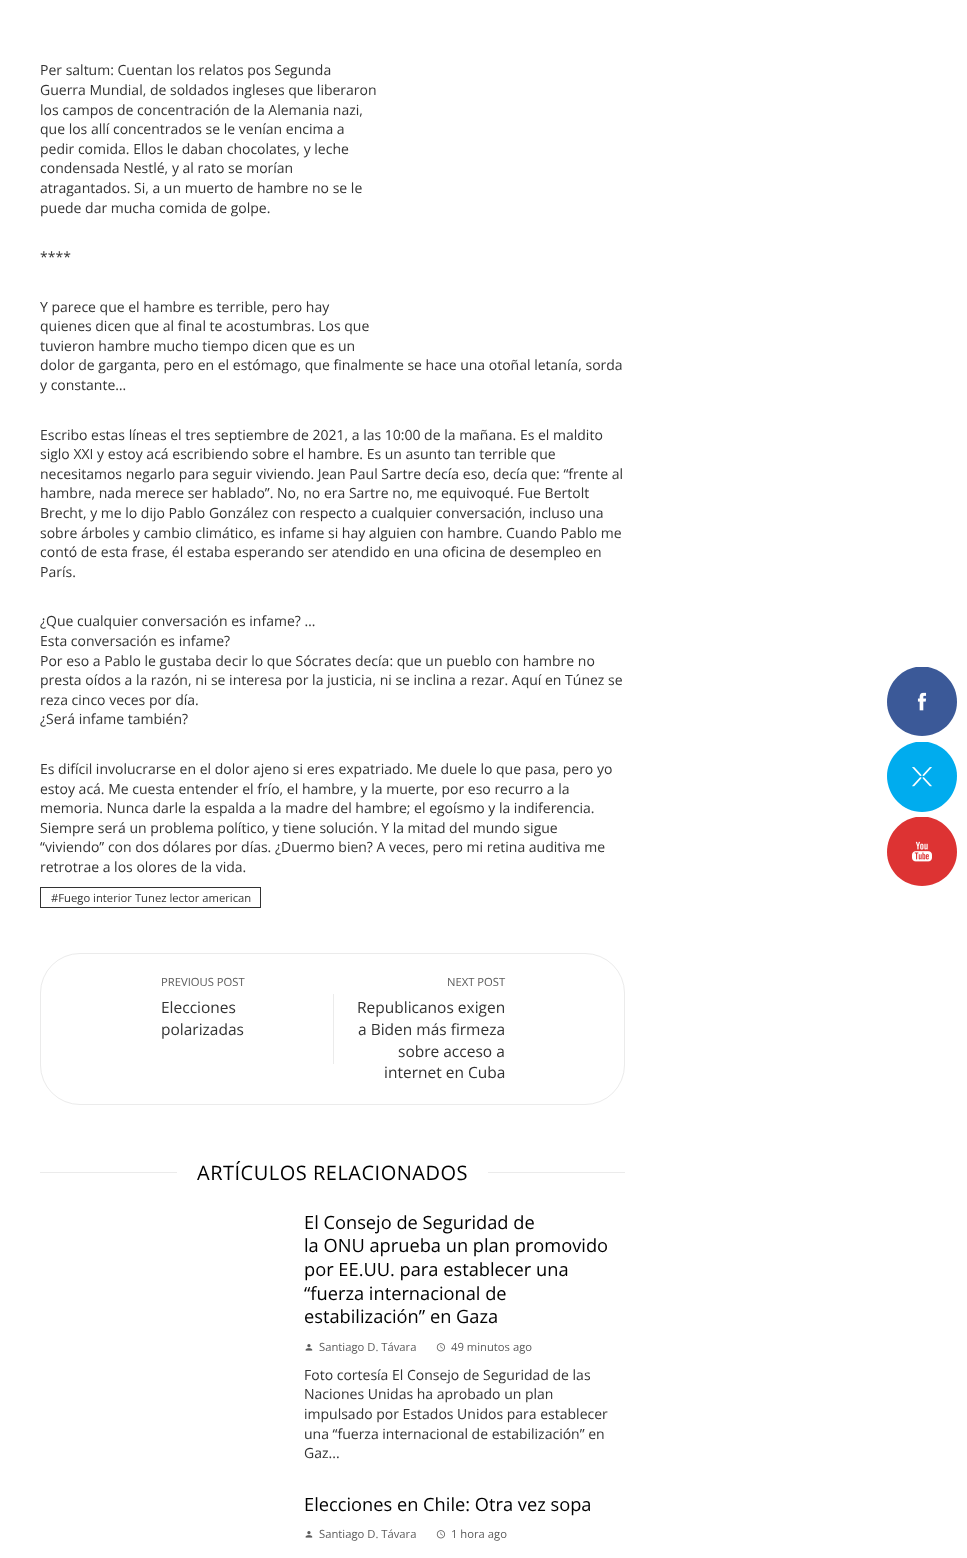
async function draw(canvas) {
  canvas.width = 967;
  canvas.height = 1558;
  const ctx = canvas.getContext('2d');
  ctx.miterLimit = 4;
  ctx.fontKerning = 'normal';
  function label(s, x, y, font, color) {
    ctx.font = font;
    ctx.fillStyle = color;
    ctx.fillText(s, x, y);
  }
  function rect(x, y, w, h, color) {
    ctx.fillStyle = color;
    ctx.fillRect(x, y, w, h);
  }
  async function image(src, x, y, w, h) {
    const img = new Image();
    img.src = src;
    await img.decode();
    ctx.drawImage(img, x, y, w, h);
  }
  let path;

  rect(0, 0, 967, 1558, '#fff');
  label('Per saltum: Cuentan los relatos pos Segunda', 40, 75, '14px Open Sans', '#333');
  label('Guerra Mundial, de soldados ingleses que liberaron', 40, 95, '14px Open Sans', '#333');
  label('los campos de concentración de la Alemania nazi,', 40, 115, '14px Open Sans', '#333');
  label('que los allí concentrados se le venían encima a', 40, 134, '14px Open Sans', '#333');
  label('pedir comida. Ellos le daban chocolates, y leche', 40, 154, '14px Open Sans', '#333');
  label('condensada Nestlé, y al rato se morían', 40, 173, '14px Open Sans', '#333');
  label('atragantados. Si, a un muerto de hambre no se le', 40, 193, '14px Open Sans', '#333');
  label('puede dar mucha comida de golpe.', 40, 213, '14px Open Sans', '#333');
  label('****', 40, 262, '14px Open Sans', '#333');
  label('Y parece que el hambre es terrible, pero hay', 40, 312, '14px Open Sans', '#333');
  label('quienes dicen que al final te acostumbras. Los que', 40, 331, '14px Open Sans', '#333');
  label('tuvieron hambre mucho tiempo dicen que es un', 40, 351, '14px Open Sans', '#333');
  label('dolor de garganta, pero en el estómago, que finalmente se hace una otoñal letanía, sorda', 40, 370, '14px Open Sans', '#333');
  label('y constante…', 40, 390, '14px Open Sans', '#333');
  label('Escribo estas líneas el tres septiembre de 2021, a las 10:00 de la mañana. Es el maldito', 40, 440, '14px Open Sans', '#333');
  label('siglo XXI y estoy acá escribiendo sobre el hambre. Es un asunto tan terrible que', 40, 459, '14px Open Sans', '#333');
  label('necesitamos negarlo para seguir viviendo. Jean Paul Sartre decía eso, decía que: “frente al', 40, 479, '14px Open Sans', '#333');
  label('hambre, nada merece ser hablado”. No, no era Sartre no, me equivoqué. Fue Bertolt', 40, 498, '14px Open Sans', '#333');
  label('Brecht, y me lo dijo Pablo González con respecto a cualquier conversación, incluso una', 40, 518, '14px Open Sans', '#333');
  label('sobre árboles y cambio climático, es infame si hay alguien con hambre. Cuando Pablo me', 40, 538, '14px Open Sans', '#333');
  label('contó de esta frase, él estaba esperando ser atendido en una oficina de desempleo en', 40, 557, '14px Open Sans', '#333');
  label('París.', 40, 577, '14px Open Sans', '#333');
  label('¿Que cualquier conversación es infame? …', 40, 626, '14px Open Sans', '#333');
  label('Esta conversación es infame?', 40, 646, '14px Open Sans', '#333');
  label('Por eso a Pablo le gustaba decir lo que Sócrates decía: que un pueblo con hambre no', 40, 666, '14px Open Sans', '#333');
  label('presta oídos a la razón, ni se interesa por la justicia, ni se inclina a rezar. Aquí en Túnez se', 40, 685, '14px Open Sans', '#333');
  label('reza cinco veces por día.', 40, 705, '14px Open Sans', '#333');
  label('¿Será infame también?', 40, 724, '14px Open Sans', '#333');
  label('Es difícil involucrarse en el dolor ajeno si eres expatriado. Me duele lo que pasa, pero yo', 40, 774, '14px Open Sans', '#333');
  label('estoy acá. Me cuesta entender el frío, el hambre, y la muerte, por eso recurro a la', 40, 794, '14px Open Sans', '#333');
  label('memoria. Nunca darle la espalda a la madre del hambre; el egoísmo y la indiferencia.', 40, 813, '14px Open Sans', '#333');
  label('Siempre será un problema político, y tiene solución. Y la mitad del mundo sigue', 40, 833, '14px Open Sans', '#333');
  label('“viviendo” con dos dólares por días. ¿Duermo bien? A veces, pero mi retina auditiva me', 40, 852, '14px Open Sans', '#333');
  label('retrotrae a los olores de la vida.', 40, 872, '14px Open Sans', '#333');
  ctx.strokeStyle = '#333';
  ctx.strokeRect(40.5, 887.5, 220, 20);
  label('#Fuego interior Tunez lector american', 51, 902, '11.25px Open Sans', '#333');
  ctx.beginPath();
  ctx.roundRect(40.5, 953.5, 584, 151, 39.5);
  ctx.strokeStyle = '#ebebeb';
  ctx.stroke();
  label('PREVIOUS POST', 161, 986, '11.25px Open Sans', '#5c5c5c');
  label('Elecciones', 161, 1013, '15.5px Open Sans', '#333');
  label('polarizadas', 161, 1035, '15.5px Open Sans', '#333');
  rect(333, 994, 1, 70, '#ebebeb');
  label('NEXT POST', 447, 986, '11.25px Open Sans', '#5c5c5c');
  label('Republicanos exigen', 357, 1013, '15.5px Open Sans', '#333');
  label('a Biden más firmeza', 358, 1035, '15.5px Open Sans', '#333');
  label('sobre acceso a', 398, 1057, '15.5px Open Sans', '#333');
  label('internet en Cuba', 384, 1078, '15.5px Open Sans', '#333');
  rect(40, 1172, 137, 1, '#ebebeb');
  ctx.letterSpacing = '0.5px';
  label('ARTÍCULOS RELACIONADOS', 197, 1180, '20px Open Sans', '#000');
  rect(488, 1172, 137, 1, '#ebebeb');
  ctx.letterSpacing = '0px';
  label('El Consejo de Seguridad de', 304, 1229, '18.25px Open Sans', '#000');
  label('la ONU aprueba un plan promovido', 304, 1252, '18.25px Open Sans', '#000');
  label('por EE.UU. para establecer una', 304, 1276, '18.25px Open Sans', '#000');
  label('“fuerza internacional de', 304, 1300, '18.25px Open Sans', '#000');
  label('estabilización” en Gaza', 304, 1323, '18.25px Open Sans', '#000');
  await image('assets/img1.png', 305, 1344, 8, 7);
  label('Santiago D. Távara', 319, 1351, '11.25px Open Sans', '#5c5c5c');
  await image('assets/img2.png', 436, 1343, 9, 9);
  label('49 minutos ago', 451, 1351, '11.25px Open Sans', '#5c5c5c');
  label('Foto cortesía El Consejo de Seguridad de las', 304, 1380, '14px Open Sans', '#333');
  label('Naciones Unidas ha aprobado un plan', 304, 1399, '14px Open Sans', '#333');
  label('impulsado por Estados Unidos para establecer', 304, 1419, '14px Open Sans', '#333');
  label('una “fuerza internacional de estabilización” en', 304, 1439, '14px Open Sans', '#333');
  label('Gaz...', 304, 1458, '14px Open Sans', '#333');
  label('Elecciones en Chile: Otra vez sopa', 304, 1511, '18.25px Open Sans', '#000');
  await image('assets/img1.png', 305, 1531, 8, 7);
  label('Santiago D. Távara', 319, 1538, '11.25px Open Sans', '#5c5c5c');
  await image('assets/img2.png', 436, 1530, 9, 9);
  label('1 hora ago', 451, 1538, '11.25px Open Sans', '#5c5c5c');
  ctx.fillStyle = '#3b5998';
  path = new Path2D('M928 667C944 670 957 684 957 702C957 721 941 736 922 736C903 736 887 721 887 702C887 684 900 670 916 667Z');
  ctx.fill(path);
  await image('assets/img3.png', 917, 692, 10, 19);
  ctx.fillStyle = '#00acee';
  path = new Path2D('M928 742C944 745 957 759 957 776C957 796 941 812 922 812C903 812 887 796 887 776C887 759 900 745 916 742Z');
  ctx.fill(path);
  await image('assets/img4.png', 912, 767, 20, 20);
  ctx.fillStyle = '#d33';
  path = new Path2D('M928 817C944 820 957 834 957 852C957 871 941 886 922 886C903 886 887 871 887 852C887 834 900 820 916 817Z');
  ctx.fill(path);
  await image('assets/img5.png', 912, 841, 20, 21);
}

draw(document.querySelector('canvas'));
